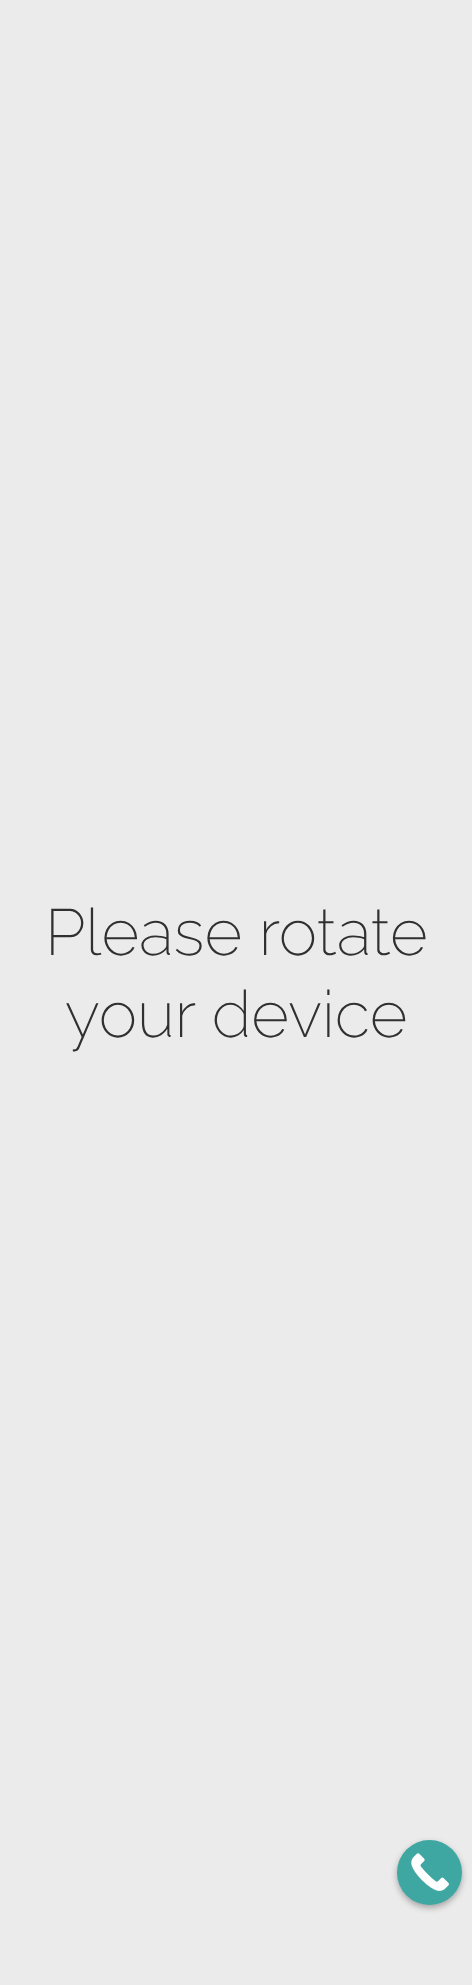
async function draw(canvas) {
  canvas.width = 472;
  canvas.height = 1985;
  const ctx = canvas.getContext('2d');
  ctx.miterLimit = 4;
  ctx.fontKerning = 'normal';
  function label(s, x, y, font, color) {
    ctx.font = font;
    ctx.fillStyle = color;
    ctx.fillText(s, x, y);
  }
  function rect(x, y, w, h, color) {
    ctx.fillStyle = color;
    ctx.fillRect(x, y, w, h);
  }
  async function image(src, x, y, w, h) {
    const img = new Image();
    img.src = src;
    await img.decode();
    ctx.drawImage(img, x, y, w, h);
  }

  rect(0, 0, 472, 1985, '#ebebeb');
  label('Please rotate', 45, 955, '200 65px Raleway', '#303030');
  label('your device', 65, 1037, '200 65px Raleway', '#303030');
  ctx.fillStyle = '#0000004d';
  ctx.filter = 'blur(3px)';
  ctx.beginPath();
  ctx.roundRect(397, 1843, 65, 65, 32.5);
  ctx.fill();
  ctx.filter = 'none';
  ctx.fillStyle = '#3fa7a2';
  ctx.beginPath();
  ctx.arc(429.5, 1872.5, 32.5, 0, 2 * Math.PI);
  ctx.fill();
  await image('assets/img1.png', 411, 1853, 38, 38);
}

draw(document.querySelector('canvas'));
